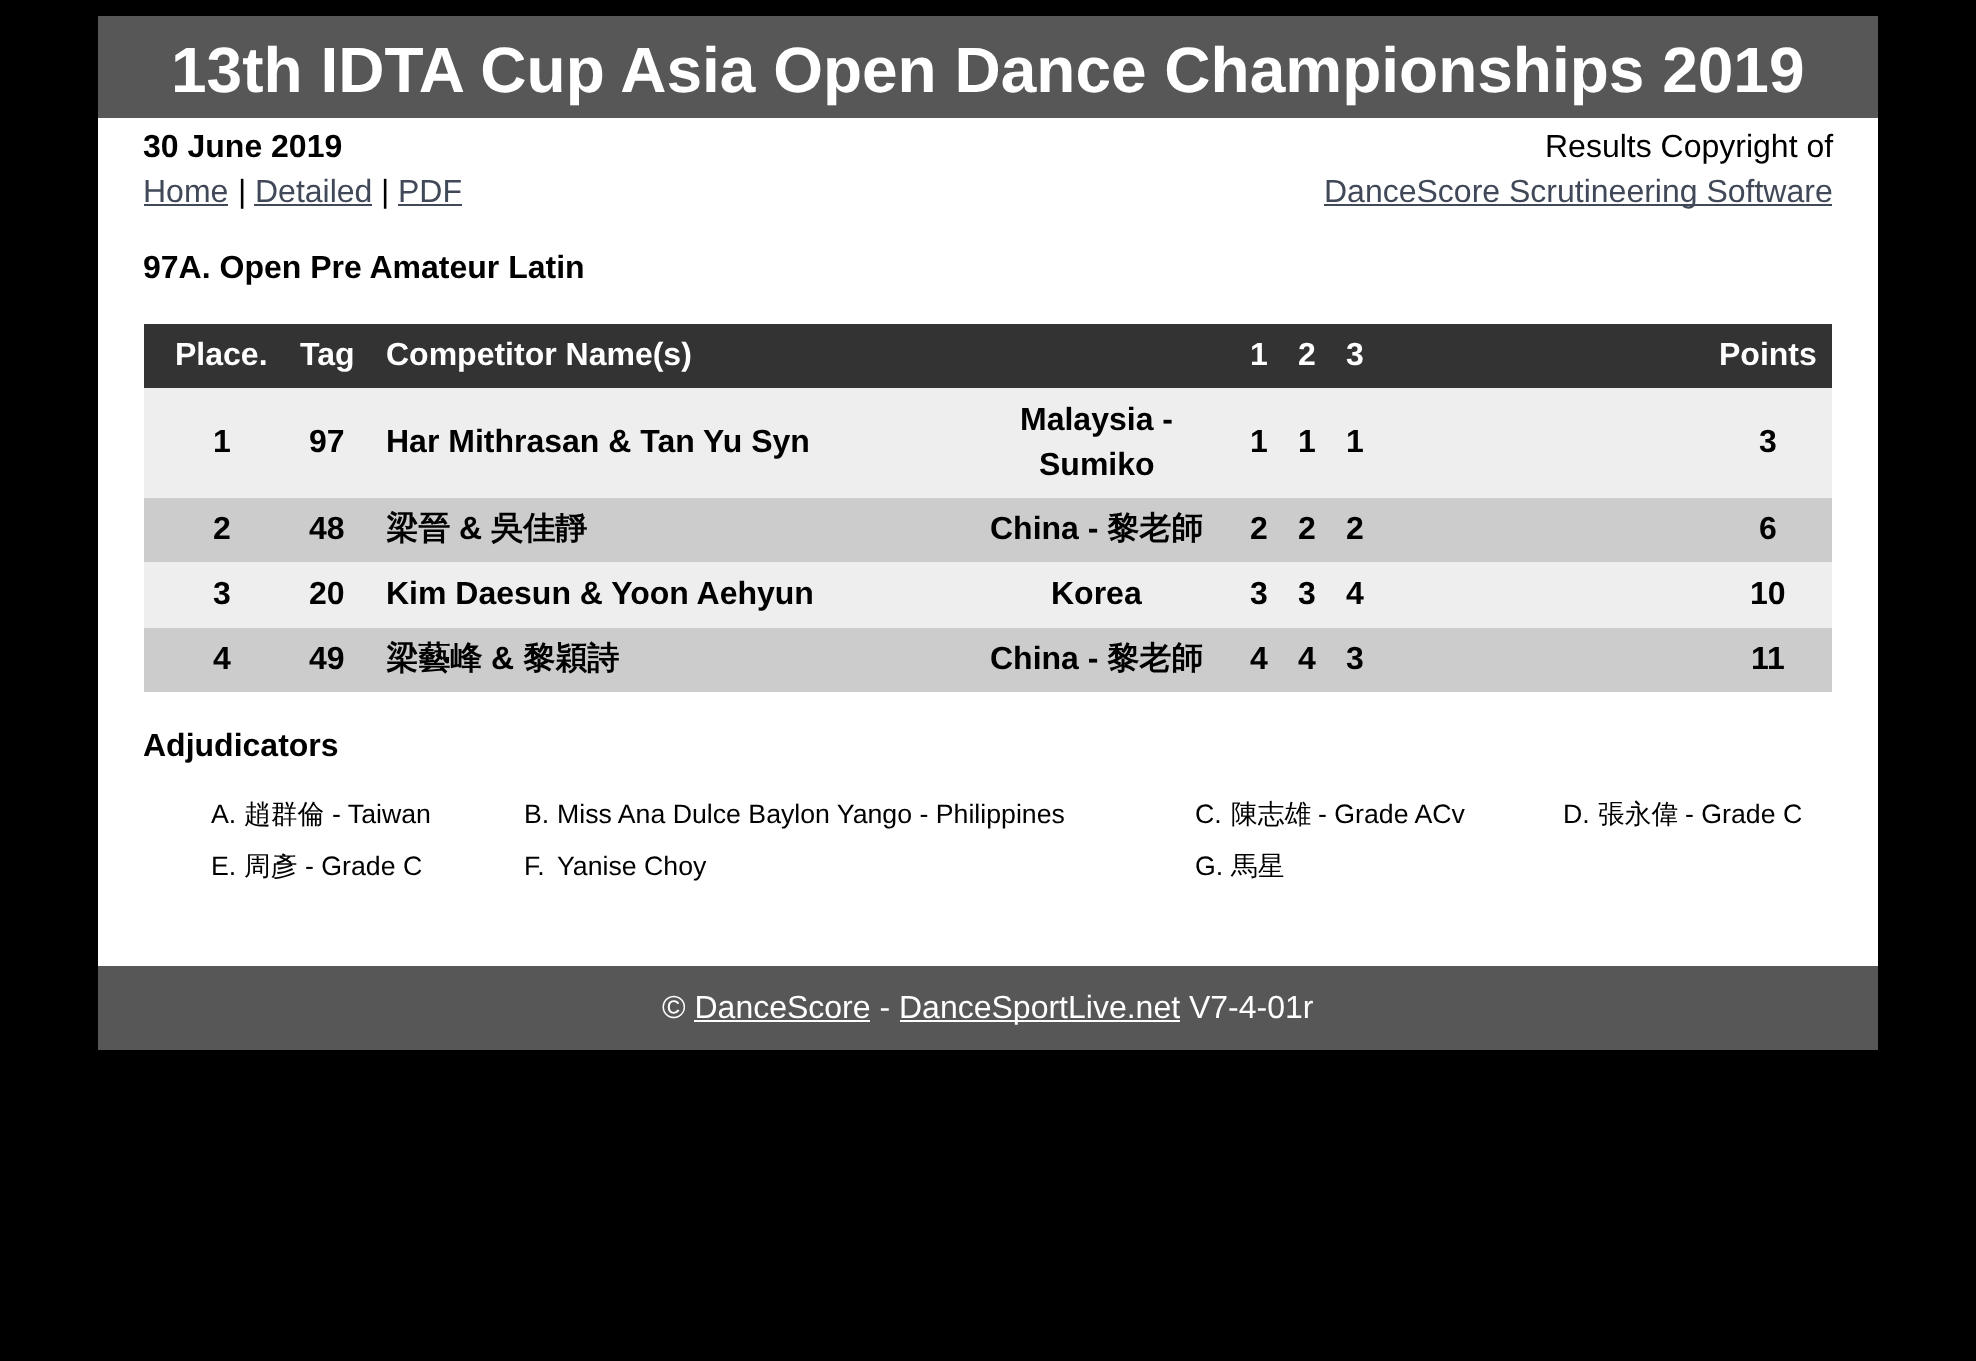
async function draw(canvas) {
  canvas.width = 1976;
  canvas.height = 1361;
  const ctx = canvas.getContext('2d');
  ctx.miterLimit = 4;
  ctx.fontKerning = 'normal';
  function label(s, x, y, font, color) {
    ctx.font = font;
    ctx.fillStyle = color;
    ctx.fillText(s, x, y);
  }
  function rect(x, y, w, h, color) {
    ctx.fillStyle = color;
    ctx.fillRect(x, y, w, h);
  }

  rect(0, 0, 1976, 1361, '#000');
  rect(98, 118, 1780, 848, '#fff');
  rect(98, 16, 1780, 102, '#575757');
  label('13th IDTA Cup Asia Open Dance Championships 2019', 171, 92, 'bold 64px Liberation Sans', '#fff');
  label('30 June 2019', 143, 157, 'bold 32px Liberation Sans', '#000');
  label('Results Copyright of', 1545, 157, '32px Liberation Sans', '#000');
  label('Home', 143, 202, '32px Liberation Sans', '#414958');
  rect(144, 204, 84, 2, '#414958');
  label('|', 238, 202, '32px Liberation Sans', '#000');
  label('Detailed', 255, 202, '32px Liberation Sans', '#414958');
  rect(254, 204, 118, 2, '#414958');
  label('|', 381, 202, '32px Liberation Sans', '#000');
  label('PDF', 398, 202, '32px Liberation Sans', '#414958');
  rect(398, 204, 64, 2, '#414958');
  rect(1324, 204, 508, 2, '#414958');
  label('DanceScore Scrutineering Software', 1324, 202, '32px Liberation Sans', '#414958');
  label('97A. Open Pre Amateur Latin', 143, 278, 'bold 32px Liberation Sans', '#000');
  rect(144, 324, 1688, 64, '#333');
  label('Place.', 175, 365, 'bold 32px Liberation Sans', '#fff');
  label('Tag', 300, 365, 'bold 32px Liberation Sans', '#fff');
  label('Competitor Name(s)', 386, 365, 'bold 32px Liberation Sans', '#fff');
  label('1', 1250, 365, 'bold 32px Liberation Sans', '#fff');
  label('2', 1298, 365, 'bold 32px Liberation Sans', '#fff');
  label('3', 1346, 365, 'bold 32px Liberation Sans', '#fff');
  label('Points', 1719, 365, 'bold 32px Liberation Sans', '#fff');
  rect(144, 388, 1688, 110, '#eee');
  label('1', 213, 452, 'bold 32px Liberation Sans', '#000');
  label('97', 309, 452, 'bold 32px Liberation Sans', '#000');
  label('Har Mithrasan & Tan Yu Syn', 386, 452, 'bold 32px Liberation Sans', '#000');
  label('Malaysia -', 1020, 430, 'bold 32px Liberation Sans', '#000');
  label('Sumiko', 1039, 475, 'bold 32px Liberation Sans', '#000');
  label('1', 1250, 452, 'bold 32px Liberation Sans', '#000');
  label('1', 1298, 452, 'bold 32px Liberation Sans', '#000');
  label('1', 1346, 452, 'bold 32px Liberation Sans', '#000');
  label('3', 1759, 452, 'bold 32px Liberation Sans', '#000');
  rect(144, 498, 1688, 64, '#ccc');
  label('2', 213, 539, 'bold 32px Liberation Sans', '#000');
  label('48', 309, 539, 'bold 32px Liberation Sans', '#000');
  label('梁晉', 386, 539, 'bold 32px WenQuanYi Zen Hei', '#000');
  label('&', 459, 539, 'bold 32px Liberation Sans', '#000');
  label('吳佳靜', 491, 539, 'bold 32px WenQuanYi Zen Hei', '#000');
  label('China -', 990, 539, 'bold 32px Liberation Sans', '#000');
  label('黎老師', 1107, 539, 'bold 32px WenQuanYi Zen Hei', '#000');
  label('2', 1250, 539, 'bold 32px Liberation Sans', '#000');
  label('2', 1298, 539, 'bold 32px Liberation Sans', '#000');
  label('2', 1346, 539, 'bold 32px Liberation Sans', '#000');
  label('6', 1759, 539, 'bold 32px Liberation Sans', '#000');
  rect(144, 562, 1688, 66, '#eee');
  label('3', 213, 604, 'bold 32px Liberation Sans', '#000');
  label('20', 309, 604, 'bold 32px Liberation Sans', '#000');
  label('Kim Daesun & Yoon Aehyun', 386, 604, 'bold 32px Liberation Sans', '#000');
  label('Korea', 1051, 604, 'bold 32px Liberation Sans', '#000');
  label('3', 1250, 604, 'bold 32px Liberation Sans', '#000');
  label('3', 1298, 604, 'bold 32px Liberation Sans', '#000');
  label('4', 1346, 604, 'bold 32px Liberation Sans', '#000');
  label('10', 1750, 604, 'bold 32px Liberation Sans', '#000');
  rect(144, 628, 1688, 64, '#ccc');
  label('4', 213, 669, 'bold 32px Liberation Sans', '#000');
  label('49', 309, 669, 'bold 32px Liberation Sans', '#000');
  label('梁藝峰', 386, 669, 'bold 32px WenQuanYi Zen Hei', '#000');
  label('&', 491, 669, 'bold 32px Liberation Sans', '#000');
  label('黎穎詩', 523, 669, 'bold 32px WenQuanYi Zen Hei', '#000');
  label('China -', 990, 669, 'bold 32px Liberation Sans', '#000');
  label('黎老師', 1107, 669, 'bold 32px WenQuanYi Zen Hei', '#000');
  label('4', 1250, 669, 'bold 32px Liberation Sans', '#000');
  label('4', 1298, 669, 'bold 32px Liberation Sans', '#000');
  label('3', 1346, 669, 'bold 32px Liberation Sans', '#000');
  label('11', 1751, 669, 'bold 32px Liberation Sans', '#000');
  label('Adjudicators', 143, 756, 'bold 32px Liberation Sans', '#000');
  label('A.', 211, 823, '26.7px Liberation Sans', '#000');
  label('趙群倫', 244, 823, '500 26.7px WenQuanYi Zen Hei', '#000');
  label('- Taiwan', 332, 823, '26.7px Liberation Sans', '#000');
  label('B.', 524, 823, '26.7px Liberation Sans', '#000');
  label('Miss Ana Dulce Baylon Yango - Philippines', 557, 823, '26.7px Liberation Sans', '#000');
  label('C.', 1195, 823, '26.7px Liberation Sans', '#000');
  label('陳志雄', 1231, 823, '500 26.7px WenQuanYi Zen Hei', '#000');
  label('- Grade ACv', 1318, 823, '26.7px Liberation Sans', '#000');
  label('D.', 1563, 823, '26.7px Liberation Sans', '#000');
  label('張永偉', 1598, 823, '500 26.7px WenQuanYi Zen Hei', '#000');
  label('- Grade C', 1685, 823, '26.7px Liberation Sans', '#000');
  label('E.', 211, 875, '26.7px Liberation Sans', '#000');
  label('周彥', 244, 875, '500 26.7px WenQuanYi Zen Hei', '#000');
  label('- Grade C', 305, 875, '26.7px Liberation Sans', '#000');
  label('F.', 524, 875, '26.7px Liberation Sans', '#000');
  label('Yanise Choy', 557, 875, '26.7px Liberation Sans', '#000');
  label('G.', 1195, 875, '26.7px Liberation Sans', '#000');
  label('馬星', 1231, 875, '500 26.7px WenQuanYi Zen Hei', '#000');
  rect(98, 966, 1780, 84, '#575757');
  label('© DanceScore -', 662, 1018, '32px Liberation Sans', '#fff');
  rect(900, 1020, 280, 2, '#fff');
  label('DanceSportLive.net V7-4-01r', 899, 1018, '32px Liberation Sans', '#fff');
  rect(694, 1020, 176, 2, '#fff');
}

draw(document.querySelector('canvas'));
